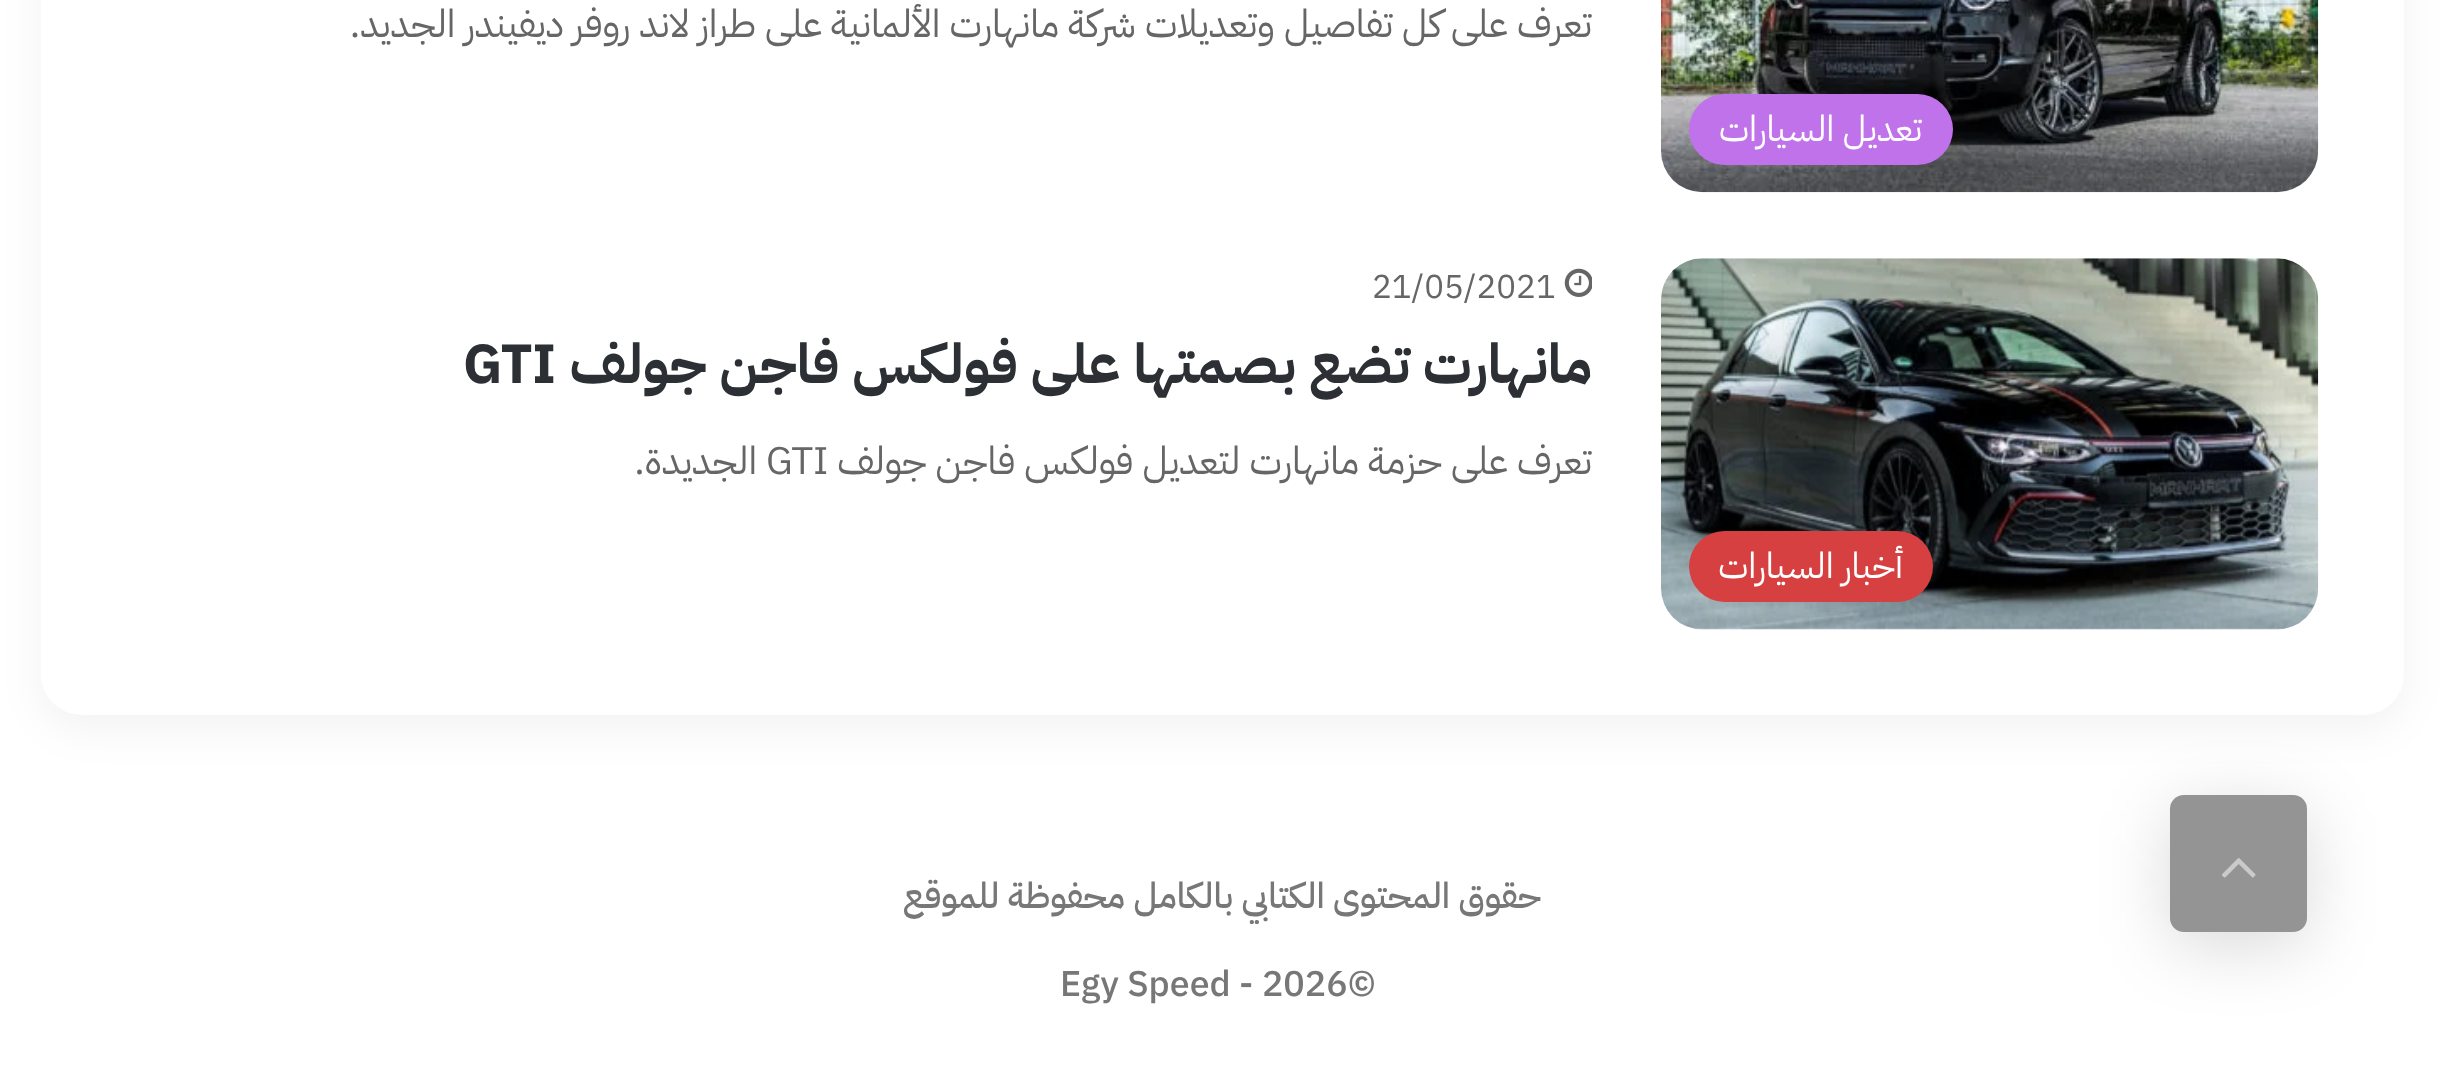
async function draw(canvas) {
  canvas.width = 2443;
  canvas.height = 1082;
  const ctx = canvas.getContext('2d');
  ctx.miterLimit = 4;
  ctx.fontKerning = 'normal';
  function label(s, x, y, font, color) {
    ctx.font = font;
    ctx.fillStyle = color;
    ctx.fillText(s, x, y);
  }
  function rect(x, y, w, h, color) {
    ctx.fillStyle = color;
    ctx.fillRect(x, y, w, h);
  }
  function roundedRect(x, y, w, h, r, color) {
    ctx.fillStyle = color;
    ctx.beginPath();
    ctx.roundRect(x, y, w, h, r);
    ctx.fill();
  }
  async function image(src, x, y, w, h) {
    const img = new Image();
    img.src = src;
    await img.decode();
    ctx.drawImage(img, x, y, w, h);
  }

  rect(0, 0, 2443, 1082, '#fff');
  ctx.fillStyle = '#0000000d';
  ctx.filter = 'blur(20.5px)';
  ctx.beginPath();
  ctx.roundRect(41, -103, 2363, 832, 41);
  ctx.fill();
  ctx.filter = 'none';
  roundedRect(41, -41, 2363, 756, 41, '#fff');
  ctx.direction = 'rtl';
  label('تعرف على كل تفاصيل وتعديلات شركة مانهارت الألمانية على طراز لاند روفر ديفيندر الجديد.', 1592, 37, '38.5px IBM Plex Sans Arabic', '#666');
  await image('assets/img1.png', 1661, 0, 658, 193);
  roundedRect(1689, 94, 264, 71, 35.5, '#c072ea');
  label('تعديل السيارات', 1922, 141, '35.75px IBM Plex Sans Arabic', '#fff');
  await image('assets/img2.png', 1564, 268, 28, 29);
  ctx.direction = 'ltr';
  label('21/05/2021', 1372, 298, '33px IBM Plex Sans Arabic', '#666');
  ctx.direction = 'rtl';
  label('مانهارت تضع بصمتها على فولكس فاجن جولف', 1592, 383, 'bold 55px IBM Plex Sans Arabic', '#2c2f34');
  ctx.direction = 'ltr';
  label('GTI', 463, 383, 'bold 55px IBM Plex Sans Arabic', '#2c2f34');
  ctx.direction = 'rtl';
  label('تعرف على حزمة مانهارت لتعديل فولكس فاجن جولف', 1592, 474, '38.5px IBM Plex Sans Arabic', '#666');
  ctx.direction = 'ltr';
  label('GTI', 766, 474, '38.5px IBM Plex Sans Arabic', '#666');
  ctx.direction = 'rtl';
  label('الجديدة.', 757, 474, '38.5px IBM Plex Sans Arabic', '#666');
  await image('assets/img3.png', 1661, 258, 658, 372);
  roundedRect(1689, 531, 244, 71, 35.5, '#d64040');
  label('أخبار السيارات', 1903, 578, '35.75px IBM Plex Sans Arabic', '#fff');
  ctx.fillStyle = '#00000026';
  ctx.filter = 'blur(34.5px)';
  ctx.beginPath();
  ctx.roundRect(2170, 809, 137, 137, 14);
  ctx.fill();
  ctx.filter = 'none';
  roundedRect(2170, 795, 137, 137, 14, '#949494');
  await image('assets/img4.png', 2221, 858, 35, 20);
  label('حقوق المحتوى الكتابي بالكامل محفوظة للموقع', 1541, 908, '500 35.75px IBM Plex Sans Arabic', '#777');
  ctx.direction = 'ltr';
  label('Egy Speed - 2026©', 1060, 996, '500 35.75px IBM Plex Sans Arabic', '#777');
}

draw(document.querySelector('canvas'));
